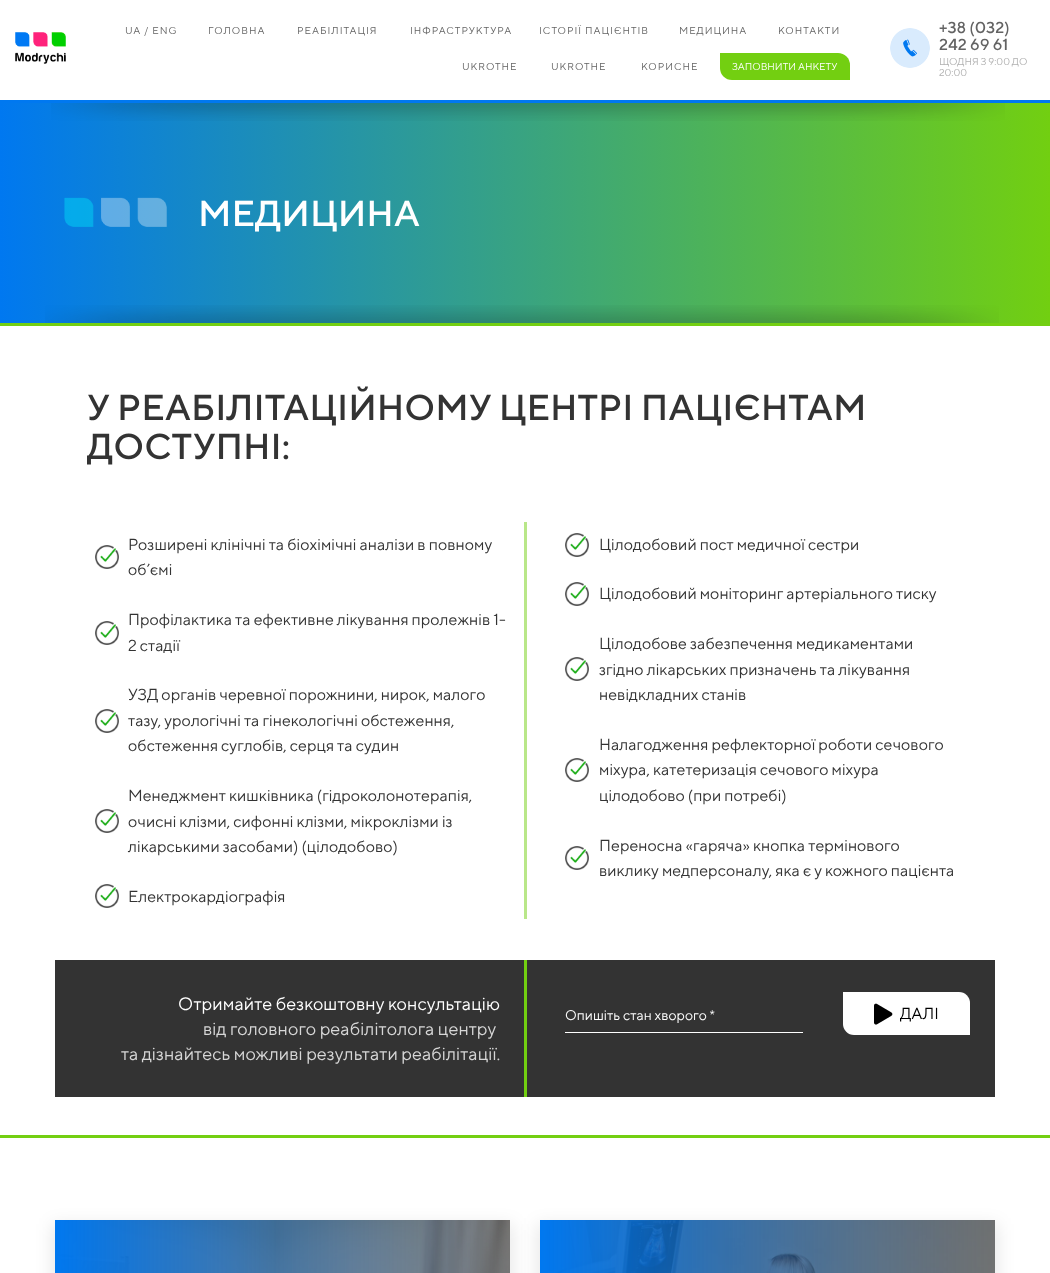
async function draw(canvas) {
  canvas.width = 1050;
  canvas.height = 1273;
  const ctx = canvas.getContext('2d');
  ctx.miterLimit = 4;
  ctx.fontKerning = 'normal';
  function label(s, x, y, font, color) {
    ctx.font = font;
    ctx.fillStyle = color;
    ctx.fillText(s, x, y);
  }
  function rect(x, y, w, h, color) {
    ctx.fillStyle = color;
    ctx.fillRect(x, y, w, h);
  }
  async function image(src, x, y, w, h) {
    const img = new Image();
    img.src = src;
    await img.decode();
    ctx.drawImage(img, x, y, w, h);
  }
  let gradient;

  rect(0, 0, 1050, 1273, '#fff');
  await image('assets/img1.png', 15, 32, 51, 32);
  ctx.letterSpacing = '1px';
  label('UA / ENG', 125, 34, '10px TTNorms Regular', '#636363');
  label('ГОЛОВНА', 208, 34, '10px TTNorms Regular', '#636363');
  label('РЕАБІЛІТАЦІЯ', 297, 34, '10px TTNorms Regular', '#636363');
  label('ІНФРАСТРУКТУРА', 410, 34, '10px TTNorms Regular', '#636363');
  label('ІСТОРІЇ ПАЦІЄНТІВ', 539, 34, '10px TTNorms Regular', '#636363');
  label('МЕДИЦИНА', 679, 34, '10px TTNorms Regular', '#636363');
  label('КОНТАКТИ', 778, 34, '10px TTNorms Regular', '#636363');
  label('UKROTHE', 462, 70, '10px TTNorms Regular', '#636363');
  label('UKROTHE', 551, 70, '10px TTNorms Regular', '#636363');
  label('КОРИСНЕ', 641, 70, '10px TTNorms Regular', '#636363');
  ctx.fillStyle = '#73cf11';
  ctx.beginPath();
  ctx.roundRect(720, 53, 130, 27, [0, 12, 0, 12]);
  ctx.fill();
  ctx.letterSpacing = '0px';
  label('ЗАПОВНИТИ АНКЕТУ', 732, 70, '10px TTNorms Regular', '#fff');
  await image('assets/img2.png', 890, 28, 40, 40);
  label('+38 (032)', 939, 33, '16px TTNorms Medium', '#636363');
  label('242 69 61', 939, 50, '16px TTNorms Medium', '#636363');
  label('ЩОДНЯ З 9:00 ДО', 939, 65, '10px TTNorms Regular', '#b0b0b0');
  label('20:00', 939, 76, '10px TTNorms Regular', '#b0b0b0');
  rect(0, 100, 1050, 3, '#0078f0');
  gradient = ctx.createLinearGradient(0, 213, 1050, 213);
  gradient.addColorStop(0, '#0078f0');
  gradient.addColorStop(1, '#72cf11');
  ctx.fillStyle = gradient;
  ctx.fillRect(0, 103, 1050, 220);
  await image('assets/img3.png', 51, 103, 954, 18);
  await image('assets/img4.png', 64, 197, 103, 30);
  label('МЕДИЦИНА', 198, 226, '36px TTNorms Medium', '#fff');
  await image('assets/img5.png', 45, 305, 954, 18);
  rect(0, 323, 1050, 3, '#73cf12');
  label('У РЕАБІЛІТАЦІЙНОМУ ЦЕНТРІ ПАЦІЄНТАМ', 87, 420, '36px TTNorms Medium', '#333');
  label('ДОСТУПНІ:', 87, 459, '36px TTNorms Medium', '#333');
  await image('assets/img6.png', 95, 545, 24, 24);
  label('Розширені клінічні та біохімічні аналізи в повному', 128, 550, '16px TTNorms Regular', '#333');
  label('об’ємі', 128, 575, '16px TTNorms Regular', '#333');
  await image('assets/img6.png', 95, 621, 24, 24);
  label('Профілактика та ефективне лікування пролежнів 1-', 128, 625, '16px TTNorms Regular', '#333');
  label('2 стадії', 128, 651, '16px TTNorms Regular', '#333');
  await image('assets/img6.png', 95, 709, 24, 24);
  label('УЗД органів черевної порожнини, нирок, малого', 128, 700, '16px TTNorms Regular', '#333');
  label('тазу, урологічні та гінекологічні обстеження,', 128, 726, '16px TTNorms Regular', '#333');
  label('обстеження суглобів, серця та судин', 128, 751, '16px TTNorms Regular', '#333');
  await image('assets/img6.png', 95, 809, 24, 24);
  label('Менеджмент кишківника (гідроколонотерапія,', 128, 801, '16px TTNorms Regular', '#333');
  label('очисні клізми, сифонні клізми, мікроклізми із', 128, 827, '16px TTNorms Regular', '#333');
  label('лікарськими засобами) (цілодобово)', 128, 852, '16px TTNorms Regular', '#333');
  await image('assets/img6.png', 95, 884, 24, 24);
  label('Електрокардіографія', 128, 902, '16px TTNorms Regular', '#333');
  rect(524, 522, 3, 397, '#b9e789');
  await image('assets/img7.png', 565, 533, 24, 24);
  label('Цілодобовий пост медичної сестри', 599, 550, '16px TTNorms Regular', '#333');
  await image('assets/img7.png', 565, 582, 24, 24);
  label('Цілодобовий моніторинг артеріального тиску', 599, 599, '16px TTNorms Regular', '#333');
  await image('assets/img7.png', 565, 657, 24, 24);
  label('Цілодобове забезпечення медикаментами', 599, 649, '16px TTNorms Regular', '#333');
  label('згідно лікарських призначень та лікування', 599, 675, '16px TTNorms Regular', '#333');
  label('невідкладних станів', 599, 700, '16px TTNorms Regular', '#333');
  await image('assets/img7.png', 565, 758, 24, 24);
  label('Налагодження рефлекторної роботи сечового', 599, 750, '16px TTNorms Regular', '#333');
  label('міхура, катетеризація сечового міхура', 599, 775, '16px TTNorms Regular', '#333');
  label('цілодобово (при потребі)', 599, 801, '16px TTNorms Regular', '#333');
  await image('assets/img7.png', 565, 846, 24, 24);
  label('Переносна «гаряча» кнопка термінового', 599, 851, '16px TTNorms Regular', '#333');
  label('виклику медперсоналу, яка є у кожного пацієнта', 599, 876, '16px TTNorms Regular', '#333');
  rect(55, 960, 940, 137, '#333');
  label('Отримайте безкоштовну консультацію', 178, 1010, '18px TTNorms Regular', '#fff');
  label('від головного реабілітолога центру', 203, 1035, '18px TTNorms Regular', '#d7d7d7');
  label('та дізнайтесь можливі результати реабілітації.', 121, 1060, '18px TTNorms Regular', '#d7d7d7');
  rect(524, 960, 3, 137, '#72cf11');
  label('Опишіть стан хворого *', 565, 1020, '14px TTNorms Regular', '#fff');
  rect(565, 1032, 238, 1, '#fff');
  ctx.beginPath();
  ctx.roundRect(843, 992, 127, 43, [0, 11, 0, 11]);
  ctx.fill();
  await image('assets/img8.png', 874, 1003, 19, 22);
  label('ДАЛІ', 900, 1019, '16px TTNorms Regular', '#000');
  rect(0, 1135, 1050, 3, '#73cf12');
  ctx.fillStyle = '#00000017';
  ctx.filter = 'blur(8.5px)';
  ctx.beginPath();
  ctx.rect(52, 1224, 461, 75);
  ctx.fill();
  ctx.filter = 'none';
  await image('assets/img9.png', 55, 1220, 455, 53);
  ctx.filter = 'blur(8.5px)';
  ctx.beginPath();
  ctx.rect(537, 1224, 461, 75);
  ctx.fill();
  ctx.filter = 'none';
  await image('assets/img10.png', 540, 1220, 455, 53);
}

draw(document.querySelector('canvas'));
